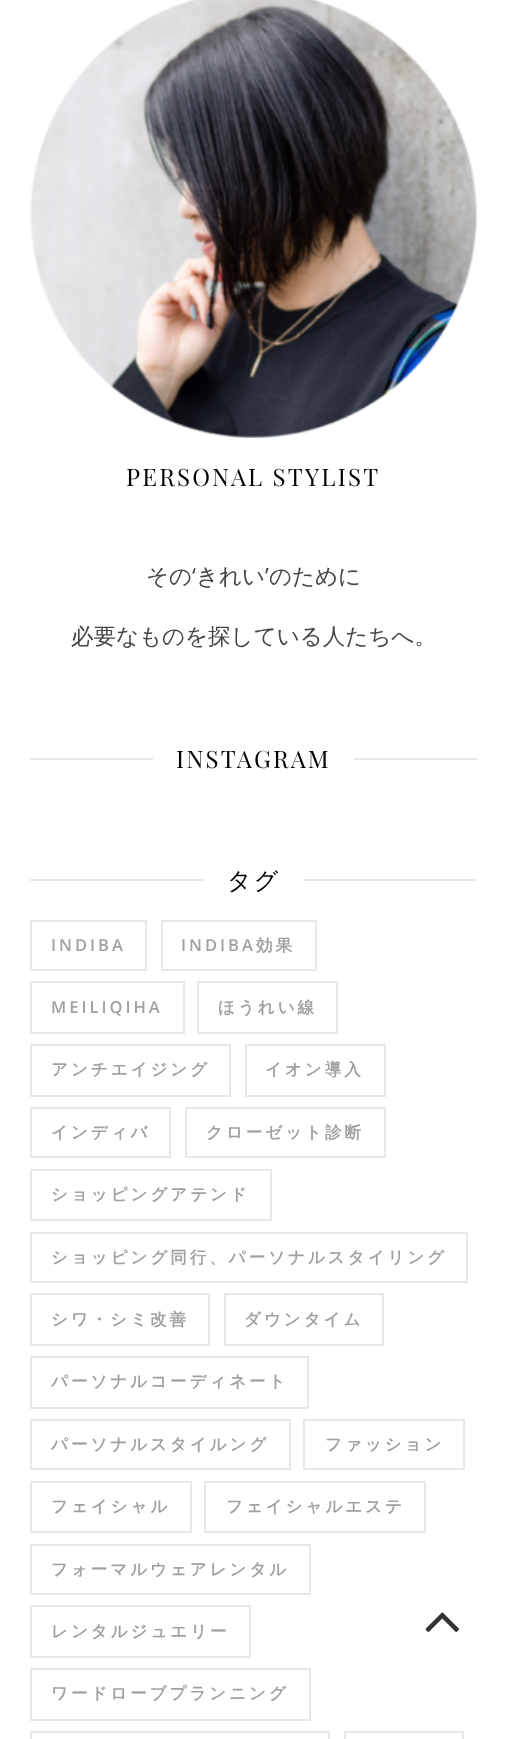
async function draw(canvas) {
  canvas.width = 507;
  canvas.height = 1739;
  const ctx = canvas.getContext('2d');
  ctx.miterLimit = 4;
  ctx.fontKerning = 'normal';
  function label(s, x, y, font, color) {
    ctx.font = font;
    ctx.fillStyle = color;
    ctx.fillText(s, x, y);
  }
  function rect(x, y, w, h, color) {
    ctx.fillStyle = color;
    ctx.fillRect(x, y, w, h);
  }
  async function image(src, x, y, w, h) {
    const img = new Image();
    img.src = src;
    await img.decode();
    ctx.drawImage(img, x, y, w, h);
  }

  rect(0, 0, 507, 1739, '#fff');
  await image('assets/img1.png', 30, 0, 447, 438);
  ctx.letterSpacing = '2.25px';
  label('PERSONAL STYLIST', 126, 486, '24px Playfair Display', '#030303');
  ctx.letterSpacing = '0px';
  label('その', 146, 584, '500 22.5px WenQuanYi Zen Hei', '#464646');
  label('‘', 192, 584, '22.5px Open Sans', '#464646');
  label('きれい', 196, 584, '500 22.5px WenQuanYi Zen Hei', '#464646');
  label('’', 265, 584, '22.5px Open Sans', '#464646');
  label('のために', 269, 584, '500 22.5px WenQuanYi Zen Hei', '#464646');
  label('必要なものを探している人たちへ。', 71, 644, '500 22.5px WenQuanYi Zen Hei', '#464646');
  rect(30, 758, 123, 2, '#e8e8e8');
  ctx.letterSpacing = '2.25px';
  label('INSTAGRAM', 176, 768, '24px Playfair Display', '#030303');
  rect(354, 758, 123, 2, '#e8e8e8');
  rect(30, 879, 174, 2, '#e8e8e8');
  label('タグ', 227, 889, '500 24px WenQuanYi Zen Hei', '#030303');
  rect(303, 879, 174, 2, '#e8e8e8');
  ctx.strokeStyle = '#e8e8e8';
  ctx.lineWidth = 2;
  ctx.strokeRect(31, 921, 115, 49);
  ctx.letterSpacing = '3px';
  label('INDIBA', 51, 951, '600 16.5px Open Sans', '#a1a1a1');
  ctx.strokeRect(162, 921, 154, 49);
  label('INDIBA', 181, 951, '600 16.5px Open Sans', '#a1a1a1');
  label('効果', 256, 951, 'bold 16.5px WenQuanYi Zen Hei', '#a1a1a1');
  ctx.strokeRect(31, 982, 153, 51);
  label('MEILIQIHA', 51, 1013, '600 16.5px Open Sans', '#a1a1a1');
  ctx.strokeRect(198, 982, 139, 51);
  label('ほうれい線', 218, 1013, 'bold 16.5px WenQuanYi Zen Hei', '#a1a1a1');
  ctx.strokeRect(31, 1045, 199, 51);
  label('アンチエイジング', 51, 1075, 'bold 16.5px WenQuanYi Zen Hei', '#a1a1a1');
  ctx.strokeRect(246, 1045, 139, 51);
  label('イオン導入', 265, 1075, 'bold 16.5px WenQuanYi Zen Hei', '#a1a1a1');
  ctx.strokeRect(31, 1108, 139, 49);
  label('インディバ', 51, 1138, 'bold 16.5px WenQuanYi Zen Hei', '#a1a1a1');
  ctx.strokeRect(186, 1108, 199, 49);
  label('クローゼット診断', 206, 1138, 'bold 16.5px WenQuanYi Zen Hei', '#a1a1a1');
  ctx.strokeRect(31, 1170, 240, 50);
  label('ショッピングアテンド', 51, 1200, 'bold 16.5px WenQuanYi Zen Hei', '#a1a1a1');
  ctx.strokeRect(31, 1233, 436, 49);
  label('ショッピング同行、パーソナルスタイリング', 51, 1263, 'bold 16.5px WenQuanYi Zen Hei', '#a1a1a1');
  ctx.strokeRect(31, 1294, 178, 51);
  label('シワ・シミ改善', 51, 1325, 'bold 16.5px WenQuanYi Zen Hei', '#a1a1a1');
  ctx.strokeRect(225, 1294, 158, 51);
  label('ダウンタイム', 244, 1325, 'bold 16.5px WenQuanYi Zen Hei', '#a1a1a1');
  ctx.strokeRect(31, 1357, 277, 51);
  label('パーソナルコーディネート', 51, 1387, 'bold 16.5px WenQuanYi Zen Hei', '#a1a1a1');
  ctx.strokeRect(31, 1420, 259, 49);
  label('パーソナルスタイルング', 51, 1450, 'bold 16.5px WenQuanYi Zen Hei', '#a1a1a1');
  ctx.strokeRect(304, 1420, 160, 49);
  label('ファッション', 325, 1450, 'bold 16.5px WenQuanYi Zen Hei', '#a1a1a1');
  ctx.strokeRect(31, 1482, 160, 50);
  label('フェイシャル', 51, 1512, 'bold 16.5px WenQuanYi Zen Hei', '#a1a1a1');
  ctx.strokeRect(205, 1482, 220, 50);
  label('フェイシャルエステ', 226, 1512, 'bold 16.5px WenQuanYi Zen Hei', '#a1a1a1');
  ctx.strokeRect(31, 1545, 279, 49);
  label('フォーマルウェアレンタル', 51, 1575, 'bold 16.5px WenQuanYi Zen Hei', '#a1a1a1');
  ctx.strokeRect(31, 1606, 219, 51);
  label('レンタルジュエリー', 51, 1637, 'bold 16.5px WenQuanYi Zen Hei', '#a1a1a1');
  ctx.strokeRect(31, 1669, 279, 51);
  label('ワードローブプランニング', 51, 1699, 'bold 16.5px WenQuanYi Zen Hei', '#a1a1a1');
  ctx.strokeRect(31, 1732, 298, 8);
  ctx.strokeRect(345, 1732, 118, 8);
  await image('assets/img2.png', 425, 1612, 34, 20);
}

draw(document.querySelector('canvas'));
